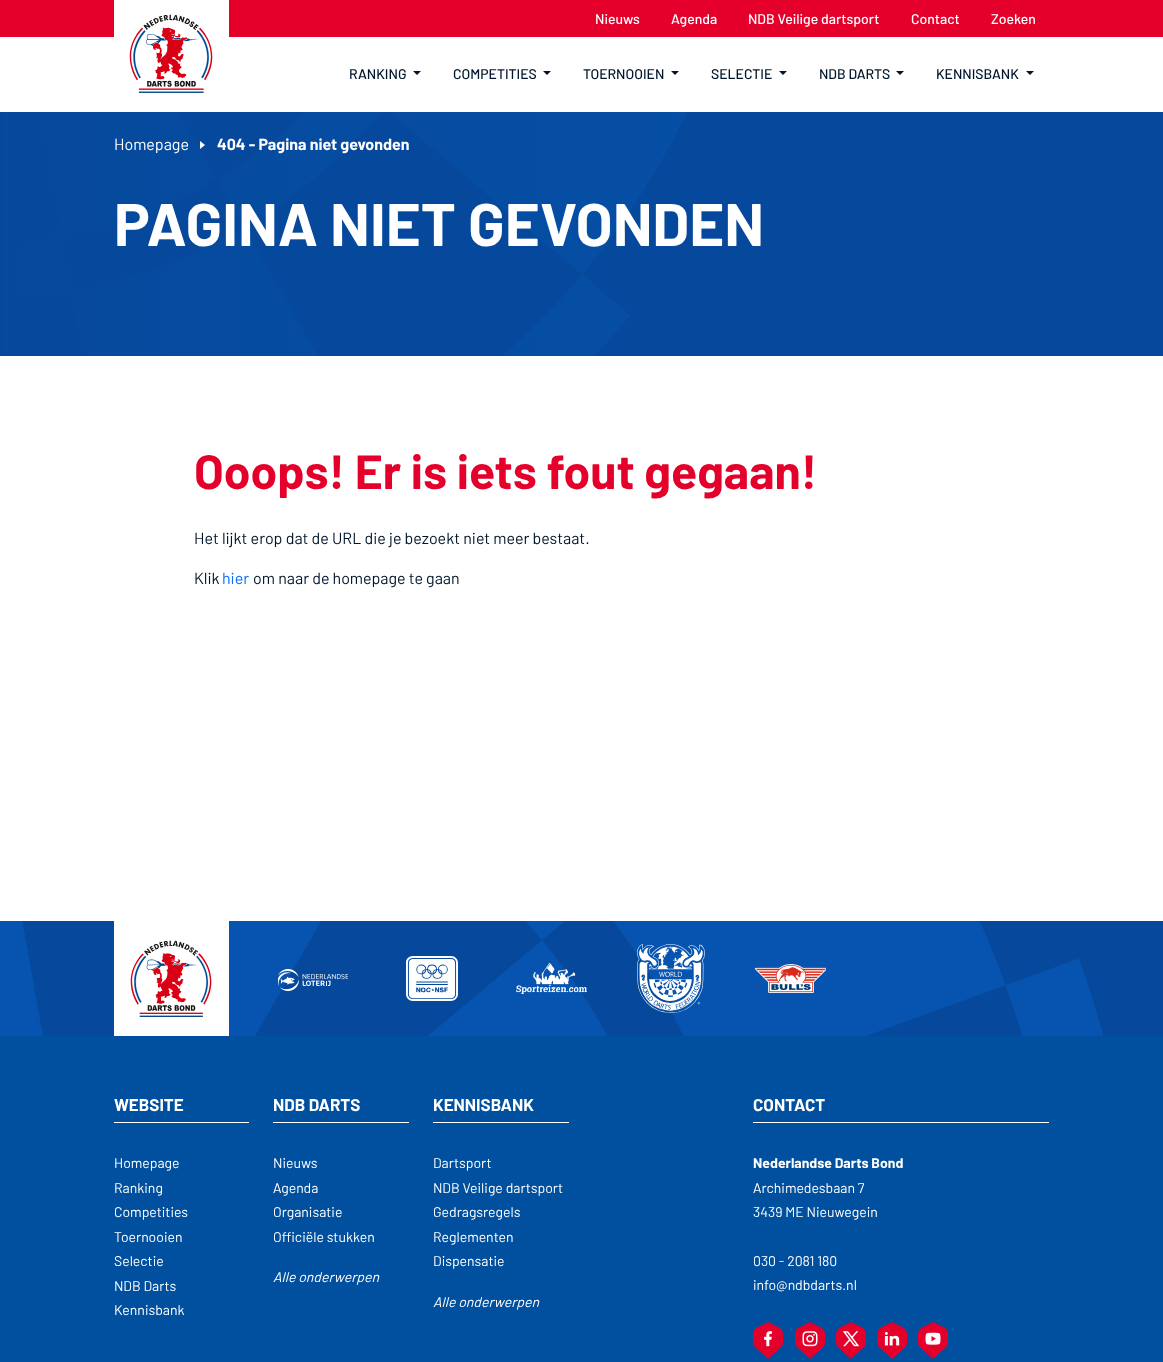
async function draw(canvas) {
  canvas.width = 1163;
  canvas.height = 1362;
  const ctx = canvas.getContext('2d');
  ctx.miterLimit = 4;
  ctx.fontKerning = 'normal';
  function label(s, x, y, font, color) {
    ctx.font = font;
    ctx.fillStyle = color;
    ctx.fillText(s, x, y);
  }
  function rect(x, y, w, h, color) {
    ctx.fillStyle = color;
    ctx.fillRect(x, y, w, h);
  }
  async function image(src, x, y, w, h) {
    const img = new Image();
    img.src = src;
    await img.decode();
    ctx.drawImage(img, x, y, w, h);
  }
  let gradient, path;

  rect(0, 0, 1163, 1362, '#fff');
  rect(0, 0, 1163, 37, '#e4002a');
  label('Nieuws', 595, 24, '500 14px Barlow', '#fff');
  label('Agenda', 671, 24, '500 14px Barlow', '#fff');
  label('NDB Veilige dartsport', 748, 24, '500 14px Barlow', '#fff');
  label('Contact', 911, 24, '500 14px Barlow', '#fff');
  label('Zoeken', 991, 24, '500 14px Barlow', '#fff');
  rect(114, 0, 115, 37, '#fff');
  await image('assets/img1.png', 129, 14, 84, 79);
  label('RANKING', 349, 79, '500 14px Barlow', '#01162b');
  path = new Path2D('M413 71H421L417 75Z');
  ctx.fill(path);
  label('COMPETITIES', 453, 79, '500 14px Barlow', '#01162b');
  path = new Path2D('M543 71H551L547 75Z');
  ctx.fill(path);
  label('TOERNOOIEN', 583, 79, '500 14px Barlow', '#01162b');
  path = new Path2D('M671 71H679L675 75Z');
  ctx.fill(path);
  label('SELECTIE', 711, 79, '500 14px Barlow', '#01162b');
  path = new Path2D('M779 71H787L783 75Z');
  ctx.fill(path);
  label('NDB DARTS', 819, 79, '500 14px Barlow', '#01162b');
  path = new Path2D('M896 71H904L900 75Z');
  ctx.fill(path);
  label('KENNISBANK', 936, 79, '500 14px Barlow', '#01162b');
  path = new Path2D('M1026 71H1034L1030 75Z');
  ctx.fill(path);
  rect(8, 112, 1155, 244, '#06499c');
  await image('assets/img2.png', 8, 112, 679, 244);
  gradient = ctx.createLinearGradient(2, 234, 1062, 234);
  gradient.addColorStop(0, '#06499c');
  gradient.addColorStop(1, '#06499c00');
  ctx.fillStyle = gradient;
  ctx.fillRect(3, 112, 684, 244);
  label('Homepage', 114, 150, '16px Barlow', '#fff');
  path = new Path2D('M200 149V141L205 145Z');
  ctx.fill(path);
  label('404 - Pagina niet gevonden', 217, 150, 'bold 16px Barlow', '#fff');
  rect(0, 112, 3, 244, '#06499c');
  label('PAGINA NIET GEVONDEN', 114, 246, 'bold 60px Barlow', '#fff');
  label('Ooops! Er is iets fout gegaan!', 194, 489, 'bold 48px Barlow', '#e4002a');
  label('Het lijkt erop dat de URL die je bezoekt niet meer bestaat.', 194, 544, '16px Barlow', '#01162b');
  label('Klik', 194, 584, '16px Barlow', '#01162b');
  label('hier', 222, 584, '16px Barlow', '#0d6efd');
  label('om naar de homepage te gaan', 253, 584, '16px Barlow', '#01162b');
  rect(0, 921, 1163, 115, '#06499c');
  await image('assets/img3.png', 0, 921, 1104, 115);
  rect(114, 921, 115, 115, '#fff');
  await image('assets/img4.png', 130, 940, 82, 77);
  await image('assets/img5.png', 278, 969, 70, 22);
  await image('assets/img6.png', 406, 956, 52, 45);
  await image('assets/img7.png', 516, 963, 71, 31);
  await image('assets/img8.png', 637, 944, 68, 69);
  await image('assets/img9.png', 755, 964, 71, 29);
  rect(0, 1036, 1163, 326, '#00509f');
  rect(114, 1122, 135, 1, '#fff');
  label('WEBSITE', 114, 1111, 'bold 17px Barlow', '#fff');
  label('Homepage', 114, 1168, '14px Barlow', '#fff');
  label('Ranking', 114, 1193, '14px Barlow', '#fff');
  label('Competities', 114, 1217, '14px Barlow', '#fff');
  label('Toernooien', 114, 1242, '14px Barlow', '#fff');
  label('Selectie', 114, 1266, '14px Barlow', '#fff');
  label('NDB Darts', 114, 1291, '14px Barlow', '#fff');
  label('Kennisbank', 114, 1315, '14px Barlow', '#fff');
  rect(273, 1122, 136, 1, '#fff');
  label('NDB DARTS', 273, 1111, 'bold 17px Barlow', '#fff');
  label('Nieuws', 273, 1168, '14px Barlow', '#fff');
  label('Agenda', 273, 1193, '14px Barlow', '#fff');
  label('Organisatie', 273, 1217, '14px Barlow', '#fff');
  label('Officiële stukken', 273, 1242, '14px Barlow', '#fff');
  label('Alle onderwerpen', 273, 1282, 'italic 14px Barlow', '#fff');
  rect(433, 1122, 136, 1, '#fff');
  label('KENNISBANK', 433, 1111, 'bold 17px Barlow', '#fff');
  label('Dartsport', 433, 1168, '14px Barlow', '#fff');
  label('NDB Veilige dartsport', 433, 1193, '14px Barlow', '#fff');
  label('Gedragsregels', 433, 1217, '14px Barlow', '#fff');
  label('Reglementen', 433, 1242, '14px Barlow', '#fff');
  label('Dispensatie', 433, 1266, '14px Barlow', '#fff');
  label('Alle onderwerpen', 433, 1307, 'italic 14px Barlow', '#fff');
  rect(753, 1122, 296, 1, '#fff');
  label('CONTACT', 753, 1111, 'bold 17px Barlow', '#fff');
  label('Nederlandse Darts Bond', 753, 1168, 'bold 14px Barlow', '#fff');
  label('Archimedesbaan 7', 753, 1193, '14px Barlow', '#fff');
  label('3439 ME Nieuwegein', 753, 1217, '14px Barlow', '#fff');
  label('030 - 2081 180', 753, 1266, '14px Barlow', '#fff');
  label('info@ndbdarts.nl', 753, 1290, '14px Barlow', '#fff');
  await image('assets/img10.png', 753, 1322, 30, 37);
  await image('assets/img11.png', 764, 1331, 8, 16);
  await image('assets/img10.png', 795, 1322, 30, 37);
  await image('assets/img12.png', 802, 1331, 16, 16);
  await image('assets/img10.png', 836, 1322, 30, 37);
  await image('assets/img13.png', 842, 1331, 18, 16);
  await image('assets/img10.png', 877, 1322, 30, 37);
  await image('assets/img14.png', 884, 1332, 16, 14);
  await image('assets/img10.png', 918, 1322, 30, 37);
  await image('assets/img15.png', 925, 1332, 16, 13);
}

draw(document.querySelector('canvas'));
